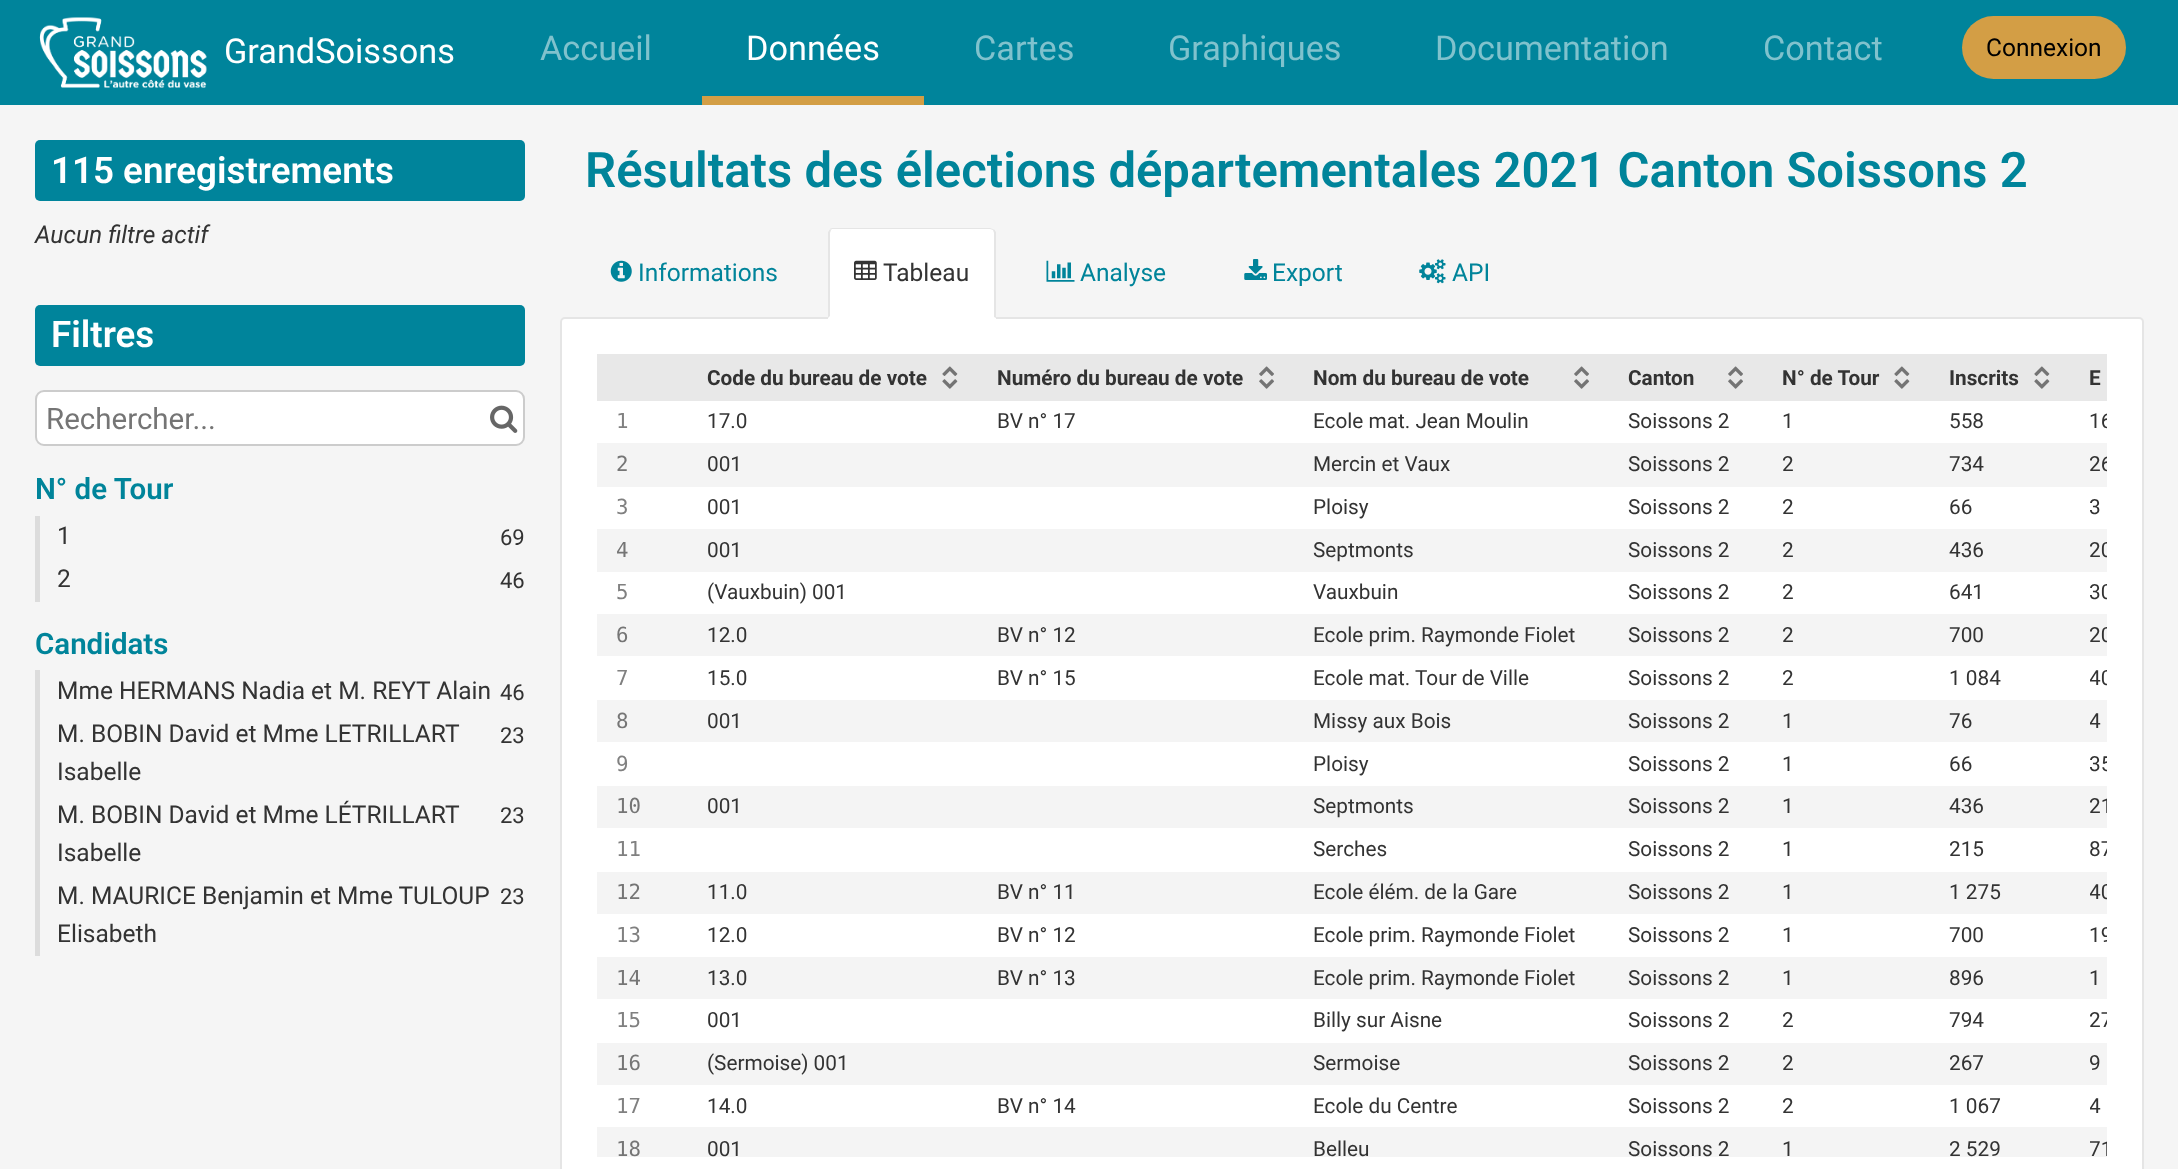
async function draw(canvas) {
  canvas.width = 2178;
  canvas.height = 1169;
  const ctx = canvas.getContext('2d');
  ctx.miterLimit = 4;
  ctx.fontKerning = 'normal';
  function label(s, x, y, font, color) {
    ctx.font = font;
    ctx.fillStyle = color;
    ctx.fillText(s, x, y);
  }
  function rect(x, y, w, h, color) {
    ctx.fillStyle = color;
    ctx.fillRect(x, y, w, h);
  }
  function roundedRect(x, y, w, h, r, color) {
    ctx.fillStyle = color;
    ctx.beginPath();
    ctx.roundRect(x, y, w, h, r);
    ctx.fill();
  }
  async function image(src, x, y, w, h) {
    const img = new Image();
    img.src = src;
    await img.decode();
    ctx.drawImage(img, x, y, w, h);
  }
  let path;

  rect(0, 0, 2178, 1169, '#f5f5f5');
  rect(0, 0, 2178, 105, '#00849b');
  await image('assets/img1.png', 39, 17, 168, 71);
  label('GrandSoissons', 224, 63, '34.25px Roboto', '#fff');
  label('Accueil', 540, 60, '34.25px Roboto', '#80c2cd');
  rect(702, 96, 222, 9, '#d39e45');
  label('Données', 746, 60, '34.25px Roboto', '#fff');
  label('Cartes', 974, 60, '34.25px Roboto', '#80c2cd');
  label('Graphiques', 1168, 60, '34.25px Roboto', '#80c2cd');
  label('Documentation', 1435, 60, '34.25px Roboto', '#80c2cd');
  label('Contact', 1763, 60, '34.25px Roboto', '#80c2cd');
  roundedRect(1962, 16, 164, 63, 31.5, '#d39e45');
  label('Connexion', 1986, 56, '24.5px Roboto', '#000');
  roundedRect(35, 140, 490, 61, 5, '#00849b');
  label('115 enregistrements', 51, 183, '600 36.75px Roboto', '#fff');
  label('Aucun filtre actif', 35, 243, 'italic 24.5px Roboto', '#333');
  roundedRect(35, 305, 490, 61, 5, '#00849b');
  label('Filtres', 51, 347, '600 36.75px Roboto', '#fff');
  ctx.beginPath();
  ctx.roundRect(36, 391, 488, 54, 8);
  ctx.fill();
  ctx.strokeStyle = '#ccc';
  ctx.lineWidth = 2;
  ctx.stroke();
  label('Rechercher...', 46, 429, '29.5px Roboto', '#757575');
  await image('assets/img2.png', 490, 405, 28, 28);
  label('N° de Tour', 35, 499, '600 29.5px Roboto', '#00849a');
  rect(35, 516, 5, 86, '#dcdcdc');
  label('1', 57, 544, '24.5px Roboto', '#333');
  label('69', 500, 545, '22px Roboto', '#333');
  label('2', 57, 587, '24.5px Roboto', '#333');
  label('46', 500, 588, '22px Roboto', '#333');
  label('Candidats', 35, 654, '600 29.5px Roboto', '#00849a');
  rect(35, 670, 5, 286, '#dcdcdc');
  label('Mme HERMANS Nadia et M. REYT Alain', 57, 699, '24.5px Roboto', '#333');
  label('46', 500, 700, '22px Roboto', '#333');
  label('M. BOBIN David et Mme LETRILLART', 57, 742, '24.5px Roboto', '#333');
  label('Isabelle', 57, 780, '24.5px Roboto', '#333');
  label('23', 500, 743, '22px Roboto', '#333');
  label('M. BOBIN David et Mme LÉTRILLART', 57, 823, '24.5px Roboto', '#333');
  label('Isabelle', 57, 861, '24.5px Roboto', '#333');
  label('23', 500, 823, '22px Roboto', '#333');
  label('M. MAURICE Benjamin et Mme TULOUP', 57, 904, '24.5px Roboto', '#333');
  label('Elisabeth', 57, 942, '24.5px Roboto', '#333');
  label('23', 500, 904, '22px Roboto', '#333');
  label('Résultats des élections départementales 2021 Canton Soissons 2', 585, 187, '600 49px Roboto', '#00849a');
  await image('assets/img3.png', 610, 260, 22, 22);
  label('Informations', 638, 281, '24.5px Roboto', '#00849a');
  ctx.fillStyle = '#fff';
  ctx.beginPath();
  ctx.roundRect(561, 318, 1582, 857, 4);
  ctx.fill();
  ctx.strokeStyle = '#e5e5e5';
  ctx.stroke();
  ctx.beginPath();
  ctx.roundRect(828, 228, 168, 91, [5, 5, 0, 0]);
  ctx.fill();
  ctx.fillStyle = '#e5e5e5';
  path = new Path2D('M833 228C832 228 830 228 830 229L831 230L832 229H990L993 230L994 229L990 228Z');
  ctx.fill(path);
  path = new Path2D('M994 229L996 232V318L994 317V233L993 230Z');
  ctx.fill(path);
  path = new Path2D('M830 229L828 232V318L830 316V233L831 230Z');
  ctx.fill(path);
  await image('assets/img4.png', 854, 260, 23, 20);
  label('Tableau', 883, 281, '24.5px Roboto', '#333');
  await image('assets/img5.png', 1046, 260, 29, 22);
  label('Analyse', 1080, 281, '24.5px Roboto', '#00849a');
  await image('assets/img6.png', 1244, 259, 23, 21);
  label('Export', 1272, 281, '24.5px Roboto', '#00849a');
  await image('assets/img7.png', 1419, 259, 27, 25);
  label('API', 1452, 281, '24.5px Roboto', '#00849a');
  rect(597, 354, 1510, 47, '#e8e8e8');
  label('Code du bureau de vote', 707, 385, 'bold 20.75px Roboto', '#333');
  await image('assets/img8.png', 942, 366, 16, 10);
  await image('assets/img9.png', 942, 379, 16, 10);
  label('Numéro du bureau de vote', 997, 385, 'bold 20.75px Roboto', '#333');
  await image('assets/img10.png', 1259, 366, 15, 10);
  await image('assets/img11.png', 1259, 379, 15, 10);
  label('Nom du bureau de vote', 1313, 385, 'bold 20.75px Roboto', '#333');
  await image('assets/img10.png', 1574, 366, 15, 10);
  await image('assets/img11.png', 1574, 379, 15, 10);
  label('Canton', 1628, 385, 'bold 20.75px Roboto', '#333');
  await image('assets/img10.png', 1728, 366, 15, 10);
  await image('assets/img11.png', 1728, 379, 15, 10);
  label('N° de Tour', 1782, 385, 'bold 20.75px Roboto', '#333');
  await image('assets/img8.png', 1894, 366, 16, 10);
  await image('assets/img9.png', 1894, 379, 16, 10);
  label('Inscrits', 1949, 385, 'bold 20.75px Roboto', '#333');
  await image('assets/img8.png', 2034, 366, 16, 10);
  await image('assets/img9.png', 2034, 379, 16, 10);
  label('E', 2089, 385, 'bold 20.75px Roboto', '#333');
  label('1', 616, 428, '20.75px DejaVu Sans Mono', '#808080');
  label('17.0', 707, 428, '20.75px Roboto', '#333');
  label('BV n° 17', 997, 428, '20.75px Roboto', '#333');
  label('Ecole mat. Jean Moulin', 1313, 428, '20.75px Roboto', '#333');
  label('Soissons 2', 1628, 428, '20.75px Roboto', '#333');
  label('1', 1782, 428, '20.75px Roboto', '#333');
  label('558', 1949, 428, '20.75px Roboto', '#333');
  ctx.save();
  ctx.beginPath();
  ctx.rect(2090, 406, 17, 32);
  ctx.clip();
  label('16', 2089, 428, '20.75px Roboto', '#333');
  ctx.restore();
  rect(597, 443, 1510, 44, '#f4f4f4');
  label('2', 616, 471, '20.75px DejaVu Sans Mono', '#757575');
  label('001', 707, 471, '20.75px Roboto', '#333');
  label('Mercin et Vaux', 1313, 471, '20.75px Roboto', '#333');
  label('Soissons 2', 1628, 471, '20.75px Roboto', '#333');
  label('2', 1782, 471, '20.75px Roboto', '#333');
  label('734', 1949, 471, '20.75px Roboto', '#333');
  ctx.save();
  ctx.beginPath();
  ctx.rect(2090, 448, 17, 33);
  ctx.clip();
  label('26', 2089, 471, '20.75px Roboto', '#333');
  ctx.restore();
  label('3', 616, 514, '20.75px DejaVu Sans Mono', '#808080');
  label('001', 707, 514, '20.75px Roboto', '#333');
  label('Ploisy', 1313, 514, '20.75px Roboto', '#333');
  label('Soissons 2', 1628, 514, '20.75px Roboto', '#333');
  label('2', 1782, 514, '20.75px Roboto', '#333');
  label('66', 1949, 514, '20.75px Roboto', '#333');
  ctx.save();
  ctx.beginPath();
  ctx.rect(2090, 492, 17, 31);
  ctx.clip();
  label('3', 2089, 514, '20.75px Roboto', '#333');
  ctx.restore();
  rect(597, 529, 1510, 43, '#f4f4f4');
  label('4', 616, 557, '20.75px DejaVu Sans Mono', '#757575');
  label('001', 707, 557, '20.75px Roboto', '#333');
  label('Septmonts', 1313, 557, '20.75px Roboto', '#333');
  label('Soissons 2', 1628, 557, '20.75px Roboto', '#333');
  label('2', 1782, 557, '20.75px Roboto', '#333');
  label('436', 1949, 557, '20.75px Roboto', '#333');
  ctx.save();
  ctx.beginPath();
  ctx.rect(2090, 534, 17, 33);
  ctx.clip();
  label('20', 2089, 557, '20.75px Roboto', '#333');
  ctx.restore();
  label('5', 616, 599, '20.75px DejaVu Sans Mono', '#808080');
  label('(Vauxbuin) 001', 707, 599, '20.75px Roboto', '#333');
  label('Vauxbuin', 1313, 599, '20.75px Roboto', '#333');
  label('Soissons 2', 1628, 599, '20.75px Roboto', '#333');
  label('2', 1782, 599, '20.75px Roboto', '#333');
  label('641', 1949, 599, '20.75px Roboto', '#333');
  ctx.save();
  ctx.beginPath();
  ctx.rect(2090, 578, 17, 31);
  ctx.clip();
  label('30', 2089, 599, '20.75px Roboto', '#333');
  ctx.restore();
  rect(597, 614, 1510, 42, '#f4f4f4');
  label('6', 616, 642, '20.75px DejaVu Sans Mono', '#757575');
  label('12.0', 707, 642, '20.75px Roboto', '#333');
  label('BV n° 12', 997, 642, '20.75px Roboto', '#333');
  ctx.save();
  ctx.beginPath();
  ctx.rect(1313, 620, 262, 31);
  ctx.clip();
  label('Ecole prim. Raymonde Fiolet', 1313, 642, '20.75px Roboto', '#333');
  ctx.restore();
  label('Soissons 2', 1628, 642, '20.75px Roboto', '#333');
  label('2', 1782, 642, '20.75px Roboto', '#333');
  label('700', 1949, 642, '20.75px Roboto', '#333');
  ctx.save();
  ctx.beginPath();
  ctx.rect(2090, 620, 17, 31);
  ctx.clip();
  label('20', 2089, 642, '20.75px Roboto', '#333');
  ctx.restore();
  label('7', 616, 685, '20.75px DejaVu Sans Mono', '#808080');
  label('15.0', 707, 685, '20.75px Roboto', '#333');
  label('BV n° 15', 997, 685, '20.75px Roboto', '#333');
  label('Ecole mat. Tour de Ville', 1313, 685, '20.75px Roboto', '#333');
  label('Soissons 2', 1628, 685, '20.75px Roboto', '#333');
  label('2', 1782, 685, '20.75px Roboto', '#333');
  label('1 084', 1949, 685, '20.75px Roboto', '#333');
  ctx.save();
  ctx.beginPath();
  ctx.rect(2090, 662, 17, 33);
  ctx.clip();
  label('40', 2089, 685, '20.75px Roboto', '#333');
  ctx.restore();
  rect(597, 700, 1510, 42, '#f4f4f4');
  label('8', 616, 728, '20.75px DejaVu Sans Mono', '#757575');
  label('001', 707, 728, '20.75px Roboto', '#333');
  label('Missy aux Bois', 1313, 728, '20.75px Roboto', '#333');
  label('Soissons 2', 1628, 728, '20.75px Roboto', '#333');
  label('1', 1782, 728, '20.75px Roboto', '#333');
  label('76', 1949, 728, '20.75px Roboto', '#333');
  ctx.save();
  ctx.beginPath();
  ctx.rect(2090, 705, 17, 32);
  ctx.clip();
  label('4', 2089, 728, '20.75px Roboto', '#333');
  ctx.restore();
  label('9', 616, 771, '20.75px DejaVu Sans Mono', '#808080');
  label('Ploisy', 1313, 771, '20.75px Roboto', '#333');
  label('Soissons 2', 1628, 771, '20.75px Roboto', '#333');
  label('1', 1782, 771, '20.75px Roboto', '#333');
  label('66', 1949, 771, '20.75px Roboto', '#333');
  ctx.save();
  ctx.beginPath();
  ctx.rect(2090, 747, 17, 34);
  ctx.clip();
  label('35', 2089, 771, '20.75px Roboto', '#333');
  ctx.restore();
  rect(597, 786, 1510, 42, '#f4f4f4');
  label('10', 616, 813, '20.75px DejaVu Sans Mono', '#757575');
  label('001', 707, 813, '20.75px Roboto', '#333');
  label('Septmonts', 1313, 813, '20.75px Roboto', '#333');
  label('Soissons 2', 1628, 813, '20.75px Roboto', '#333');
  label('1', 1782, 813, '20.75px Roboto', '#333');
  label('436', 1949, 813, '20.75px Roboto', '#333');
  ctx.save();
  ctx.beginPath();
  ctx.rect(2090, 791, 17, 32);
  ctx.clip();
  label('21', 2089, 813, '20.75px Roboto', '#333');
  ctx.restore();
  label('11', 616, 856, '20.75px DejaVu Sans Mono', '#808080');
  label('Serches', 1313, 856, '20.75px Roboto', '#333');
  label('Soissons 2', 1628, 856, '20.75px Roboto', '#333');
  label('1', 1782, 856, '20.75px Roboto', '#333');
  label('215', 1949, 856, '20.75px Roboto', '#333');
  ctx.save();
  ctx.beginPath();
  ctx.rect(2090, 833, 17, 33);
  ctx.clip();
  label('87', 2089, 856, '20.75px Roboto', '#333');
  ctx.restore();
  rect(597, 872, 1510, 42, '#f4f4f4');
  label('12', 616, 899, '20.75px DejaVu Sans Mono', '#757575');
  label('11.0', 707, 899, '20.75px Roboto', '#333');
  label('BV n° 11', 997, 899, '20.75px Roboto', '#333');
  label('Ecole élém. de la Gare', 1313, 899, '20.75px Roboto', '#333');
  label('Soissons 2', 1628, 899, '20.75px Roboto', '#333');
  label('1', 1782, 899, '20.75px Roboto', '#333');
  label('1 275', 1949, 899, '20.75px Roboto', '#333');
  ctx.save();
  ctx.beginPath();
  ctx.rect(2090, 877, 17, 31);
  ctx.clip();
  label('40', 2089, 899, '20.75px Roboto', '#333');
  ctx.restore();
  label('13', 616, 942, '20.75px DejaVu Sans Mono', '#808080');
  label('12.0', 707, 942, '20.75px Roboto', '#333');
  label('BV n° 12', 997, 942, '20.75px Roboto', '#333');
  ctx.save();
  ctx.beginPath();
  ctx.rect(1313, 919, 262, 33);
  ctx.clip();
  label('Ecole prim. Raymonde Fiolet', 1313, 942, '20.75px Roboto', '#333');
  ctx.restore();
  label('Soissons 2', 1628, 942, '20.75px Roboto', '#333');
  label('1', 1782, 942, '20.75px Roboto', '#333');
  label('700', 1949, 942, '20.75px Roboto', '#333');
  ctx.save();
  ctx.beginPath();
  ctx.rect(2090, 919, 17, 33);
  ctx.clip();
  label('19', 2089, 942, '20.75px Roboto', '#333');
  ctx.restore();
  rect(597, 957, 1510, 42, '#f4f4f4');
  label('14', 616, 985, '20.75px DejaVu Sans Mono', '#757575');
  label('13.0', 707, 985, '20.75px Roboto', '#333');
  label('BV n° 13', 997, 985, '20.75px Roboto', '#333');
  ctx.save();
  ctx.beginPath();
  ctx.rect(1313, 963, 262, 31);
  ctx.clip();
  label('Ecole prim. Raymonde Fiolet', 1313, 985, '20.75px Roboto', '#333');
  ctx.restore();
  label('Soissons 2', 1628, 985, '20.75px Roboto', '#333');
  label('1', 1782, 985, '20.75px Roboto', '#333');
  label('896', 1949, 985, '20.75px Roboto', '#333');
  label('1', 2089, 985, '20.75px Roboto', '#333');
  label('15', 616, 1027, '20.75px DejaVu Sans Mono', '#808080');
  label('001', 707, 1027, '20.75px Roboto', '#333');
  label('Billy sur Aisne', 1313, 1027, '20.75px Roboto', '#333');
  label('Soissons 2', 1628, 1027, '20.75px Roboto', '#333');
  label('2', 1782, 1027, '20.75px Roboto', '#333');
  label('794', 1949, 1027, '20.75px Roboto', '#333');
  ctx.save();
  ctx.beginPath();
  ctx.rect(2090, 1005, 17, 33);
  ctx.clip();
  label('27', 2089, 1027, '20.75px Roboto', '#333');
  ctx.restore();
  rect(597, 1043, 1510, 42, '#f4f4f4');
  label('16', 616, 1070, '20.75px DejaVu Sans Mono', '#757575');
  label('(Sermoise) 001', 707, 1070, '20.75px Roboto', '#333');
  label('Sermoise', 1313, 1070, '20.75px Roboto', '#333');
  label('Soissons 2', 1628, 1070, '20.75px Roboto', '#333');
  label('2', 1782, 1070, '20.75px Roboto', '#333');
  label('267', 1949, 1070, '20.75px Roboto', '#333');
  ctx.save();
  ctx.beginPath();
  ctx.rect(2090, 1048, 17, 32);
  ctx.clip();
  label('9', 2089, 1070, '20.75px Roboto', '#333');
  ctx.restore();
  label('17', 616, 1113, '20.75px DejaVu Sans Mono', '#808080');
  label('14.0', 707, 1113, '20.75px Roboto', '#333');
  label('BV n° 14', 997, 1113, '20.75px Roboto', '#333');
  label('Ecole du Centre', 1313, 1113, '20.75px Roboto', '#333');
  label('Soissons 2', 1628, 1113, '20.75px Roboto', '#333');
  label('2', 1782, 1113, '20.75px Roboto', '#333');
  label('1 067', 1949, 1113, '20.75px Roboto', '#333');
  ctx.save();
  ctx.beginPath();
  ctx.rect(2090, 1090, 17, 32);
  ctx.clip();
  label('4', 2089, 1113, '20.75px Roboto', '#333');
  ctx.restore();
  rect(597, 1127, 1510, 30, '#f4f4f4');
  label('18', 616, 1156, '20.75px DejaVu Sans Mono', '#757575');
  label('001', 707, 1156, '20.75px Roboto', '#333');
  label('Belleu', 1313, 1156, '20.75px Roboto', '#333');
  label('Soissons 2', 1628, 1156, '20.75px Roboto', '#333');
  label('1', 1782, 1156, '20.75px Roboto', '#333');
  label('2 529', 1949, 1156, '20.75px Roboto', '#333');
  ctx.save();
  ctx.beginPath();
  ctx.rect(2090, 1132, 17, 25);
  ctx.clip();
  label('71', 2089, 1156, '20.75px Roboto', '#333');
  ctx.restore();
}

draw(document.querySelector('canvas'));
